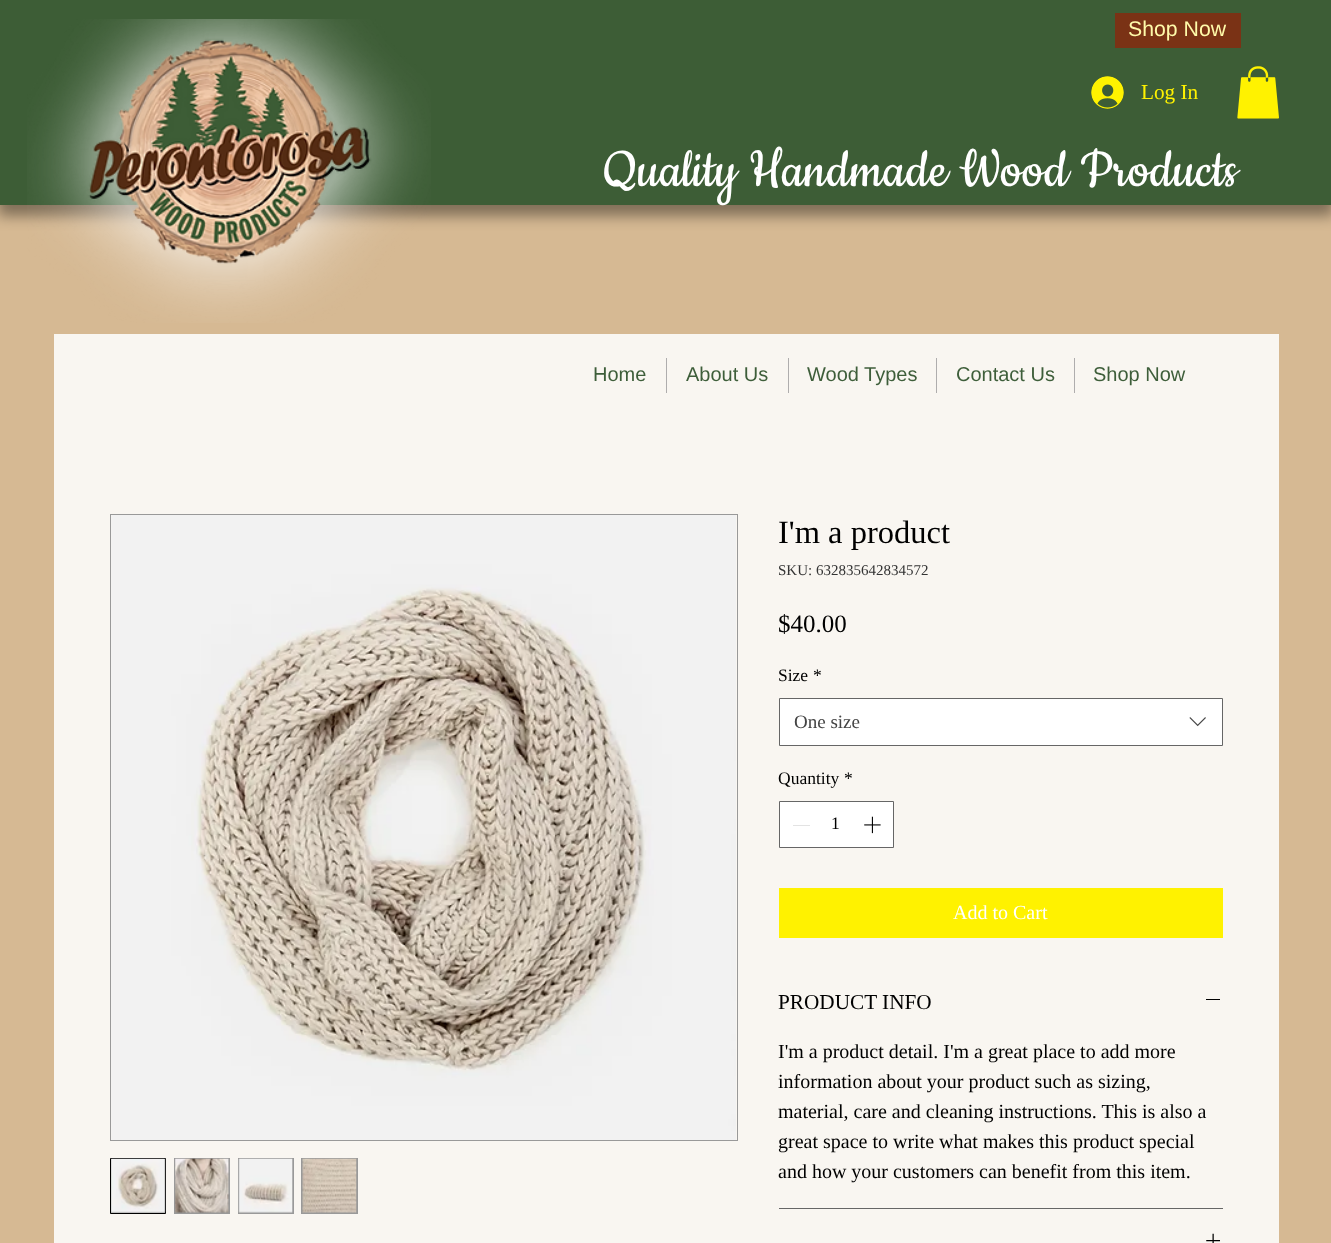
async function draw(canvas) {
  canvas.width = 1331;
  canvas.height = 1243;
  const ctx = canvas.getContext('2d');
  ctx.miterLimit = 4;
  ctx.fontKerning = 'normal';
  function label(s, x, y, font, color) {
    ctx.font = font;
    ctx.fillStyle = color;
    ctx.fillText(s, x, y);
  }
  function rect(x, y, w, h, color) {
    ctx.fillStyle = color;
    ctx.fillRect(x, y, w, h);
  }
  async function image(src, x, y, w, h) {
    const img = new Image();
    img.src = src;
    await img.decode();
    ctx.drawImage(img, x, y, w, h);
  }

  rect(0, 0, 1331, 1243, '#d6b993');
  ctx.fillStyle = '#00000066';
  ctx.filter = 'blur(7px)';
  ctx.beginPath();
  ctx.rect(-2, 6, 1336, 210);
  ctx.fill();
  ctx.filter = 'none';
  rect(0, 0, 1331, 205, '#3d5d36');
  rect(1115, 13, 126, 35, '#7a3215');
  label('Shop Now', 1128, 36, '21.25px Liberation Sans', '#fffaaa');
  await image('assets/img1.png', 1091, 76, 33, 33);
  label('Log In', 1141, 99, '21.25px Liberation Serif', '#fff200');
  await image('assets/img2.png', 1237, 66, 42, 53);
  label('Quality Handmade Wood Products', 602, 186, '60px Cookie', '#fff');
  await image('assets/img3.png', 27, 19, 404, 304);
  rect(54, 334, 1225, 909, '#f9f6f1');
  label('Home', 593, 381, '20px Liberation Sans', '#3e5e3a');
  rect(666, 358, 1, 35, '#afadad');
  label('About Us', 686, 381, '20px Liberation Sans', '#3e5e3a');
  rect(788, 358, 1, 35, '#afadad');
  label('Wood Types', 807, 381, '20px Liberation Sans', '#3e5e3a');
  rect(936, 358, 1, 35, '#afadad');
  label('Contact Us', 956, 381, '20px Liberation Sans', '#3e5e3a');
  rect(1074, 358, 1, 35, '#afadad');
  label('Shop Now', 1093, 381, '20px Liberation Sans', '#3e5e3a');
  ctx.strokeStyle = '#999';
  ctx.strokeRect(110.5, 514.5, 627, 626);
  await image('assets/img4.png', 111, 515, 625, 625);
  ctx.fillStyle = '#999';
  ctx.beginPath();
  ctx.rect(110.5, 1158.5, 55, 55);
  ctx.fill();
  ctx.strokeStyle = '#000';
  ctx.stroke();
  await image('assets/img5.png', 111, 1158, 55, 55);
  rect(174, 1158, 56, 56, '#999');
  await image('assets/img6.png', 174, 1158, 56, 55);
  rect(238, 1158, 56, 56, '#999');
  await image('assets/img7.png', 238, 1158, 55, 55);
  rect(301, 1158, 57, 56, '#999');
  await image('assets/img8.png', 302, 1158, 55, 55);
  label('I\'m a product', 778, 543, '32.5px Liberation Serif', '#000');
  label('SKU: 632835642834572', 778, 575, '15px Liberation Serif', '#333');
  label('$40.00', 778, 632, '25px Liberation Serif', '#000');
  label('Size', 778, 681, '17.5px Liberation Serif', '#000');
  label('*', 813, 681, '17.5px Liberation Serif', '#000');
  ctx.fillStyle = '#fff';
  ctx.beginPath();
  ctx.rect(779.5, 698.5, 443, 47);
  ctx.fill();
  ctx.strokeStyle = '#666';
  ctx.stroke();
  label('One size', 794, 728, '19px Liberation Serif', '#444');
  await image('assets/img9.png', 1189, 717, 17, 10);
  label('Quantity', 778, 784, '17.5px Liberation Serif', '#000');
  label('*', 844, 784, '17.5px Liberation Serif', '#000');
  ctx.fillStyle = '#fff';
  ctx.beginPath();
  ctx.rect(779.5, 801.5, 114, 46);
  ctx.fill();
  ctx.stroke();
  rect(793, 825, 17, 1, '#e3e3e3');
  label('1', 831, 829, '17.5px Liberation Serif', '#000');
  await image('assets/img10.png', 864, 816, 17, 18);
  rect(779, 888, 444, 50, '#fff200');
  label('Add to Cart', 953, 919, '20px Liberation Serif', '#fff');
  rect(779, 1208, 444, 1, '#666');
  label('PRODUCT INFO', 778, 1009, '21.25px Liberation Serif', '#000');
  rect(1206, 999, 14, 1, '#000');
  label('I\'m a product detail. I\'m a great place to add more', 778, 1058, '20px Liberation Serif', '#000');
  label('information about your product such as sizing,', 778, 1088, '20px Liberation Serif', '#000');
  label('material, care and cleaning instructions. This is also a', 778, 1118, '20px Liberation Serif', '#000');
  label('great space to write what makes this product special', 778, 1148, '20px Liberation Serif', '#000');
  label('and how your customers can benefit from this item.', 778, 1178, '20px Liberation Serif', '#000');
  await image('assets/img11.png', 1206, 1233, 14, 10);
}

draw(document.querySelector('canvas'));
